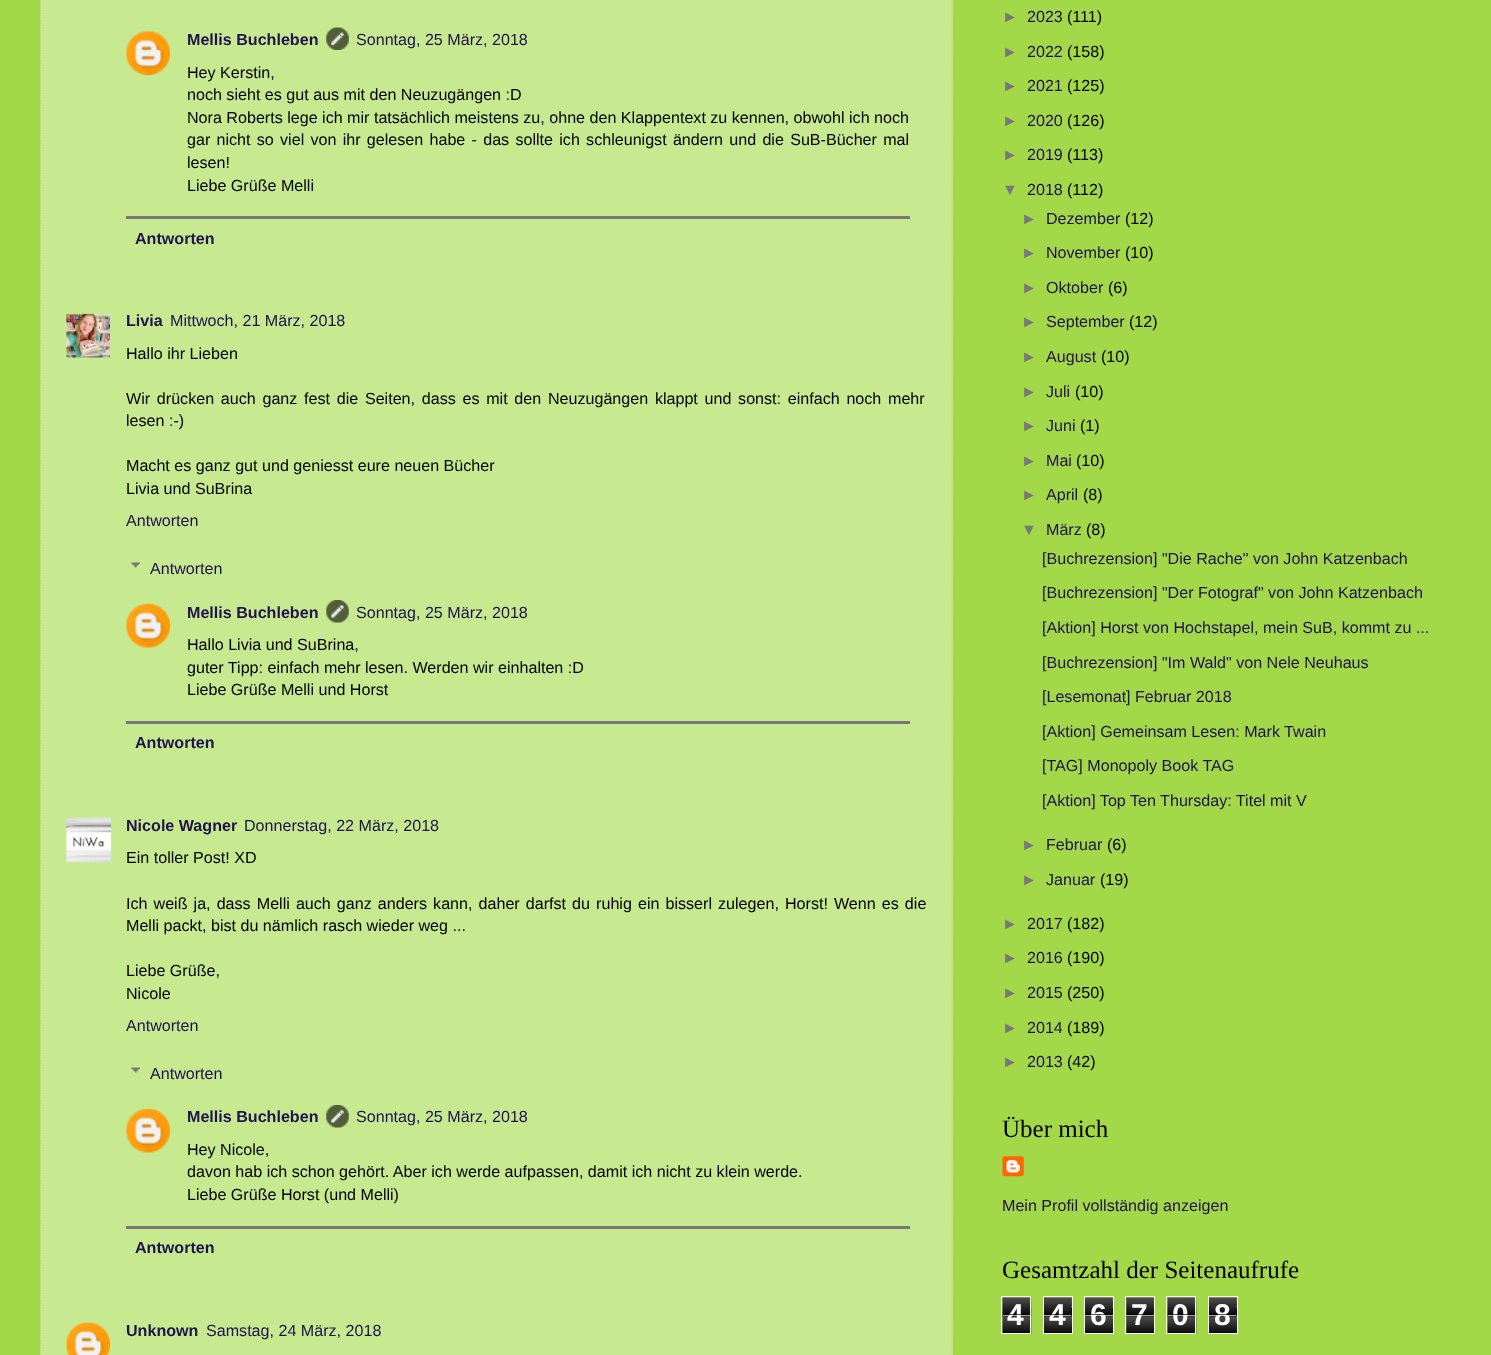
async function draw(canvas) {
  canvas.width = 1491;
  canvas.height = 1355;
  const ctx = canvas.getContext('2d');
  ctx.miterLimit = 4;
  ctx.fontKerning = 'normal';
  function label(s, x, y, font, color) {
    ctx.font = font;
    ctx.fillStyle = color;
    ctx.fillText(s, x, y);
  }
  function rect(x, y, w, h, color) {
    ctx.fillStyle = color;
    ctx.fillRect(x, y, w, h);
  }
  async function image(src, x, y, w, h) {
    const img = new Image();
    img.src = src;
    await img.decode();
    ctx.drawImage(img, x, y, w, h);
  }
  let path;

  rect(0, 0, 1491, 1355, '#a3d848');
  rect(40, 0, 913, 1355, '#c7ea91');
  path = new Path2D('M952-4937.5V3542.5');
  ctx.strokeStyle = '#bccc99';
  ctx.lineWidth = 1.2;
  ctx.setLineDash([1.25, 1.25]);
  ctx.stroke(path);
  path = new Path2D('M40.5-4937.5V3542.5');
  ctx.stroke(path);
  await image('assets/img1.png', 126, 31, 44, 44);
  label('Mellis Buchleben', 187, 45, 'bold 16.1px Liberation Sans', '#20124d');
  await image('assets/img2.png', 326, 27, 23, 23);
  label('Sonntag, 25 März, 2018', 356, 45, '16.1px Liberation Sans', '#20124d');
  label('Hey Kerstin,', 187, 78, '16.1px Liberation Sans', '#000');
  label('noch sieht es gut aus mit den Neuzugängen :D', 187, 100, '16.1px Liberation Sans', '#000');
  label('Nora Roberts lege ich mir tatsächlich meistens zu, ohne den Klappentext zu kennen, obwohl ich noch', 187, 123, '16.1px Liberation Sans', '#000');
  ctx.wordSpacing = '1.8px';
  label('gar nicht so viel von ihr gelesen habe - das sollte ich schleunigst ändern und die SuB-Bücher mal', 187, 145, '16.1px Liberation Sans', '#000');
  ctx.wordSpacing = '0px';
  label('lesen!', 187, 168, '16.1px Liberation Sans', '#000');
  label('Liebe Grüße Melli', 187, 191, '16.1px Liberation Sans', '#000');
  rect(126, 216, 784, 3, '#787878');
  label('Antworten', 135, 244, 'bold 16.1px Liberation Sans', '#20124d');
  await image('assets/img3.png', 66, 313, 44, 45);
  label('Livia', 126, 326, 'bold 16.1px Liberation Sans', '#20124d');
  label('Mittwoch, 21 März, 2018', 170, 326, '16.1px Liberation Sans', '#20124d');
  label('Hallo ihr Lieben', 126, 359, '16.1px Liberation Sans', '#000');
  ctx.wordSpacing = '2.25px';
  label('Wir drücken auch ganz fest die Seiten, dass es mit den Neuzugängen klappt und sonst: einfach noch mehr', 126, 404, '16.1px Liberation Sans', '#000');
  ctx.wordSpacing = '0px';
  label('lesen :-)', 126, 426, '16.1px Liberation Sans', '#000');
  label('Macht es ganz gut und geniesst eure neuen Bücher', 126, 471, '16.1px Liberation Sans', '#000');
  label('Livia und SuBrina', 126, 494, '16.1px Liberation Sans', '#000');
  label('Antworten', 126, 526, '16.1px Liberation Sans', '#20124d');
  await image('assets/img4.png', 131, 562, 9, 6);
  label('Antworten', 150, 574, '16.1px Liberation Sans', '#20124d');
  await image('assets/img5.png', 126, 603, 44, 45);
  label('Mellis Buchleben', 187, 618, 'bold 16.1px Liberation Sans', '#20124d');
  await image('assets/img6.png', 326, 600, 23, 23);
  label('Sonntag, 25 März, 2018', 356, 618, '16.1px Liberation Sans', '#20124d');
  label('Hallo Livia und SuBrina,', 187, 650, '16.1px Liberation Sans', '#000');
  label('guter Tipp: einfach mehr lesen. Werden wir einhalten :D', 187, 673, '16.1px Liberation Sans', '#000');
  label('Liebe Grüße Melli und Horst', 187, 695, '16.1px Liberation Sans', '#000');
  rect(126, 721, 784, 3, '#787878');
  label('Antworten', 135, 748, 'bold 16.1px Liberation Sans', '#20124d');
  await image('assets/img7.png', 66, 817, 46, 46);
  label('Nicole Wagner', 126, 831, 'bold 16.1px Liberation Sans', '#20124d');
  label('Donnerstag, 22 März, 2018', 244, 831, '16.1px Liberation Sans', '#20124d');
  label('Ein toller Post! XD', 126, 863, '16.1px Liberation Sans', '#000');
  ctx.wordSpacing = '1.6px';
  label('Ich weiß ja, dass Melli auch ganz anders kann, daher darfst du ruhig ein bisserl zulegen, Horst! Wenn es die', 126, 909, '16.1px Liberation Sans', '#000');
  ctx.wordSpacing = '0px';
  label('Melli packt, bist du nämlich rasch wieder weg ...', 126, 931, '16.1px Liberation Sans', '#000');
  label('Liebe Grüße,', 126, 976, '16.1px Liberation Sans', '#000');
  label('Nicole', 126, 999, '16.1px Liberation Sans', '#000');
  label('Antworten', 126, 1031, '16.1px Liberation Sans', '#20124d');
  await image('assets/img4.png', 131, 1067, 9, 6);
  label('Antworten', 150, 1079, '16.1px Liberation Sans', '#20124d');
  await image('assets/img5.png', 126, 1108, 44, 45);
  label('Mellis Buchleben', 187, 1122, 'bold 16.1px Liberation Sans', '#20124d');
  await image('assets/img6.png', 326, 1105, 23, 23);
  label('Sonntag, 25 März, 2018', 356, 1122, '16.1px Liberation Sans', '#20124d');
  label('Hey Nicole,', 187, 1155, '16.1px Liberation Sans', '#000');
  label('davon hab ich schon gehört. Aber ich werde aufpassen, damit ich nicht zu klein werde.', 187, 1177, '16.1px Liberation Sans', '#000');
  label('Liebe Grüße Horst (und Melli)', 187, 1200, '16.1px Liberation Sans', '#000');
  rect(126, 1226, 784, 3, '#787878');
  label('Antworten', 135, 1253, 'bold 16.1px Liberation Sans', '#20124d');
  await image('assets/img8.png', 66, 1322, 44, 33);
  label('Unknown', 126, 1336, 'bold 16.1px Liberation Sans', '#20124d');
  label('Samstag, 24 März, 2018', 206, 1336, '16.1px Liberation Sans', '#20124d');
  label('►', 1002, 22, '16.1px Liberation Sans', '#787878');
  label('2023', 1027, 22, '16.1px Liberation Sans', '#20124d');
  label('(111)', 1067, 22, '16.1px Liberation Sans', '#000');
  label('►', 1002, 57, '16.1px Liberation Sans', '#787878');
  label('2022', 1027, 57, '16.1px Liberation Sans', '#20124d');
  label('(158)', 1067, 57, '16.1px Liberation Sans', '#000');
  label('►', 1002, 91, '16.1px Liberation Sans', '#787878');
  label('2021', 1027, 91, '16.1px Liberation Sans', '#20124d');
  label('(125)', 1067, 91, '16.1px Liberation Sans', '#000');
  label('►', 1002, 126, '16.1px Liberation Sans', '#787878');
  label('2020', 1027, 126, '16.1px Liberation Sans', '#20124d');
  label('(126)', 1067, 126, '16.1px Liberation Sans', '#000');
  label('►', 1002, 160, '16.1px Liberation Sans', '#787878');
  label('2019', 1027, 160, '16.1px Liberation Sans', '#20124d');
  label('(113)', 1067, 160, '16.1px Liberation Sans', '#000');
  label('▼', 1002, 195, '16.1px Liberation Sans', '#787878');
  label('2018', 1027, 195, '16.1px Liberation Sans', '#20124d');
  label('(112)', 1067, 195, '16.1px Liberation Sans', '#000');
  label('►', 1021, 224, '16.1px Liberation Sans', '#787878');
  label('Dezember', 1046, 224, '16.1px Liberation Sans', '#20124d');
  label('(12)', 1125, 224, '16.1px Liberation Sans', '#000');
  label('►', 1021, 258, '16.1px Liberation Sans', '#787878');
  label('November', 1046, 258, '16.1px Liberation Sans', '#20124d');
  label('(10)', 1125, 258, '16.1px Liberation Sans', '#000');
  label('►', 1021, 293, '16.1px Liberation Sans', '#787878');
  label('Oktober', 1046, 293, '16.1px Liberation Sans', '#20124d');
  label('(6)', 1108, 293, '16.1px Liberation Sans', '#000');
  label('►', 1021, 327, '16.1px Liberation Sans', '#787878');
  label('September', 1046, 327, '16.1px Liberation Sans', '#20124d');
  label('(12)', 1129, 327, '16.1px Liberation Sans', '#000');
  label('►', 1021, 362, '16.1px Liberation Sans', '#787878');
  label('August', 1046, 362, '16.1px Liberation Sans', '#20124d');
  label('(10)', 1101, 362, '16.1px Liberation Sans', '#000');
  label('►', 1021, 397, '16.1px Liberation Sans', '#787878');
  label('Juli', 1046, 397, '16.1px Liberation Sans', '#20124d');
  label('(10)', 1075, 397, '16.1px Liberation Sans', '#000');
  label('►', 1021, 431, '16.1px Liberation Sans', '#787878');
  label('Juni', 1046, 431, '16.1px Liberation Sans', '#20124d');
  label('(1)', 1080, 431, '16.1px Liberation Sans', '#000');
  label('►', 1021, 466, '16.1px Liberation Sans', '#787878');
  label('Mai', 1046, 466, '16.1px Liberation Sans', '#20124d');
  label('(10)', 1076, 466, '16.1px Liberation Sans', '#000');
  label('►', 1021, 500, '16.1px Liberation Sans', '#787878');
  label('April', 1046, 500, '16.1px Liberation Sans', '#20124d');
  label('(8)', 1083, 500, '16.1px Liberation Sans', '#000');
  label('▼', 1021, 535, '16.1px Liberation Sans', '#787878');
  label('März', 1046, 535, '16.1px Liberation Sans', '#20124d');
  label('(8)', 1086, 535, '16.1px Liberation Sans', '#000');
  label('[Buchrezension] "Die Rache" von John Katzenbach', 1042, 564, '16.1px Liberation Sans', '#20124d');
  label('[Buchrezension] "Der Fotograf" von John Katzenbach', 1042, 598, '16.1px Liberation Sans', '#20124d');
  label('[Aktion] Horst von Hochstapel, mein SuB, kommt zu ...', 1042, 633, '16.1px Liberation Sans', '#20124d');
  label('[Buchrezension] "Im Wald" von Nele Neuhaus', 1042, 668, '16.1px Liberation Sans', '#20124d');
  label('[Lesemonat] Februar 2018', 1042, 702, '16.1px Liberation Sans', '#20124d');
  label('[Aktion] Gemeinsam Lesen: Mark Twain', 1042, 737, '16.1px Liberation Sans', '#20124d');
  label('[TAG] Monopoly Book TAG', 1042, 771, '16.1px Liberation Sans', '#20124d');
  label('[Aktion] Top Ten Thursday: Titel mit V', 1042, 806, '16.1px Liberation Sans', '#20124d');
  label('►', 1021, 850, '16.1px Liberation Sans', '#787878');
  label('Februar', 1046, 850, '16.1px Liberation Sans', '#20124d');
  label('(6)', 1107, 850, '16.1px Liberation Sans', '#000');
  label('►', 1021, 885, '16.1px Liberation Sans', '#787878');
  label('Januar', 1046, 885, '16.1px Liberation Sans', '#20124d');
  label('(19)', 1100, 885, '16.1px Liberation Sans', '#000');
  label('►', 1002, 929, '16.1px Liberation Sans', '#787878');
  label('2017', 1027, 929, '16.1px Liberation Sans', '#20124d');
  label('(182)', 1067, 929, '16.1px Liberation Sans', '#000');
  label('►', 1002, 963, '16.1px Liberation Sans', '#787878');
  label('2016', 1027, 963, '16.1px Liberation Sans', '#20124d');
  label('(190)', 1067, 963, '16.1px Liberation Sans', '#000');
  label('►', 1002, 998, '16.1px Liberation Sans', '#787878');
  label('2015', 1027, 998, '16.1px Liberation Sans', '#20124d');
  label('(250)', 1067, 998, '16.1px Liberation Sans', '#000');
  label('►', 1002, 1033, '16.1px Liberation Sans', '#787878');
  label('2014', 1027, 1033, '16.1px Liberation Sans', '#20124d');
  label('(189)', 1067, 1033, '16.1px Liberation Sans', '#000');
  label('►', 1002, 1067, '16.1px Liberation Sans', '#787878');
  label('2013', 1027, 1067, '16.1px Liberation Sans', '#20124d');
  label('(42)', 1067, 1067, '16.1px Liberation Sans', '#000');
  label('Über mich', 1002, 1137, '25px Liberation Serif', '#000');
  await image('assets/img9.png', 1002, 1156, 22, 21);
  label('Mein Profil vollständig anzeigen', 1002, 1211, '16.1px Liberation Sans', '#20124d');
  label('Gesamtzahl der Seitenaufrufe', 1002, 1278, '25px Liberation Serif', '#000');
  await image('assets/img10.png', 1002, 1297, 30, 37);
  ctx.strokeStyle = '#fff';
  ctx.lineWidth = 1;
  ctx.setLineDash([]);
  ctx.strokeRect(1001.5, 1296.5, 29, 37);
  label('4', 1007, 1325, 'bold 30px Liberation Sans', '#fff');
  rect(1003, 1314, 27, 1, '#000000a6');
  rect(1003, 1315, 27, 1, '#ffffffa6');
  await image('assets/img11.png', 1044, 1297, 28, 36);
  ctx.strokeRect(1043.5, 1296.5, 29, 37);
  label('4', 1049, 1325, 'bold 30px Liberation Sans', '#fff');
  rect(1044, 1314, 27, 1, '#000000a6');
  rect(1044, 1315, 27, 1, '#ffffffa6');
  await image('assets/img12.png', 1085, 1297, 28, 36);
  ctx.strokeRect(1084.5, 1296.5, 29, 37);
  label('6', 1090, 1325, 'bold 30px Liberation Sans', '#fff');
  rect(1085, 1314, 28, 1, '#000000a6');
  rect(1085, 1315, 28, 1, '#ffffffa6');
  await image('assets/img13.png', 1126, 1297, 28, 36);
  ctx.strokeRect(1125.5, 1296.5, 29, 37);
  label('7', 1131, 1325, 'bold 30px Liberation Sans', '#fff');
  rect(1126, 1314, 28, 1, '#000000a6');
  rect(1126, 1315, 28, 1, '#ffffffa6');
  await image('assets/img10.png', 1167, 1297, 30, 37);
  ctx.strokeRect(1166.5, 1296.5, 29, 37);
  label('0', 1172, 1325, 'bold 30px Liberation Sans', '#fff');
  rect(1168, 1314, 27, 1, '#000000a6');
  rect(1168, 1315, 27, 1, '#ffffffa6');
  await image('assets/img11.png', 1209, 1297, 28, 36);
  ctx.strokeRect(1208.5, 1296.5, 29, 37);
  label('8', 1214, 1325, 'bold 30px Liberation Sans', '#fff');
  rect(1209, 1314, 27, 1, '#000000a6');
  rect(1209, 1315, 27, 1, '#ffffffa6');
}

draw(document.querySelector('canvas'));
